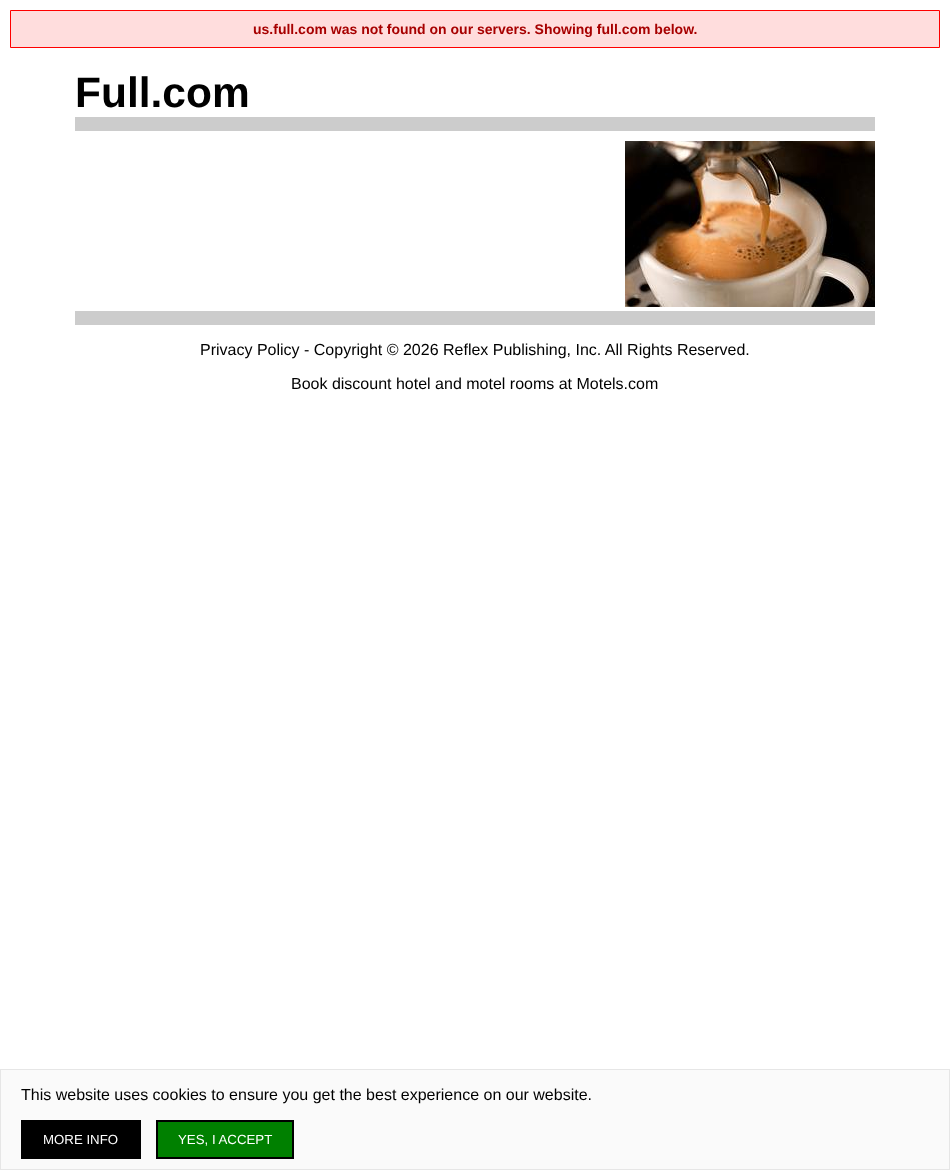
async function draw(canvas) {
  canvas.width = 950;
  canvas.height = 1170;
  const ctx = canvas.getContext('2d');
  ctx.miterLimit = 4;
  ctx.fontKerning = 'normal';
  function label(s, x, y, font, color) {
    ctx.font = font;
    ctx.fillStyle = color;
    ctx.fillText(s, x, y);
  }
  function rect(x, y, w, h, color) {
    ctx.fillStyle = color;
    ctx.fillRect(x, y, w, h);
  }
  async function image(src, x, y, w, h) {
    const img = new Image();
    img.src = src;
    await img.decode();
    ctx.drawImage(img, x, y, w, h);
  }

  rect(0, 0, 950, 1170, '#fff');
  ctx.fillStyle = '#fdd';
  ctx.beginPath();
  ctx.rect(10.5, 10.5, 929, 37);
  ctx.fill();
  ctx.strokeStyle = '#f00';
  ctx.stroke();
  label('us.full.com was not found on our servers. Showing full.com below.', 253, 34, 'bold 14px Liberation Sans', '#a70000');
  label('Full.com', 75, 107, 'bold 42.5px Liberation Sans', '#000');
  rect(75, 117, 800, 14, '#ccc');
  await image('assets/img1.png', 625, 141, 250, 166);
  rect(75, 311, 800, 14, '#ccc');
  label('Privacy Policy - Copyright © 2026 Reflex Publishing, Inc. All Rights Reserved.', 200, 355, '16px Liberation Sans', '#000');
  label('Book discount hotel and motel rooms at Motels.com', 291, 389, '16px Liberation Sans', '#000');
  rect(0, 1069, 950, 101, '#e6e6e6');
  rect(1, 1070, 948, 99, '#fafafa');
  label('This website uses cookies to ensure you get the best experience on our website.', 21, 1100, '16px Liberation Sans', '#000');
  rect(21, 1120, 120, 39, '#000');
  label('MORE INFO', 43, 1144, '13.25px Liberation Sans', '#fff');
  ctx.fillStyle = '#008000';
  ctx.beginPath();
  ctx.rect(157, 1121, 136, 37);
  ctx.fill();
  ctx.strokeStyle = '#000';
  ctx.lineWidth = 2;
  ctx.stroke();
  label('YES, I ACCEPT', 178, 1144, '13.25px Liberation Sans', '#fff');
}

draw(document.querySelector('canvas'));
